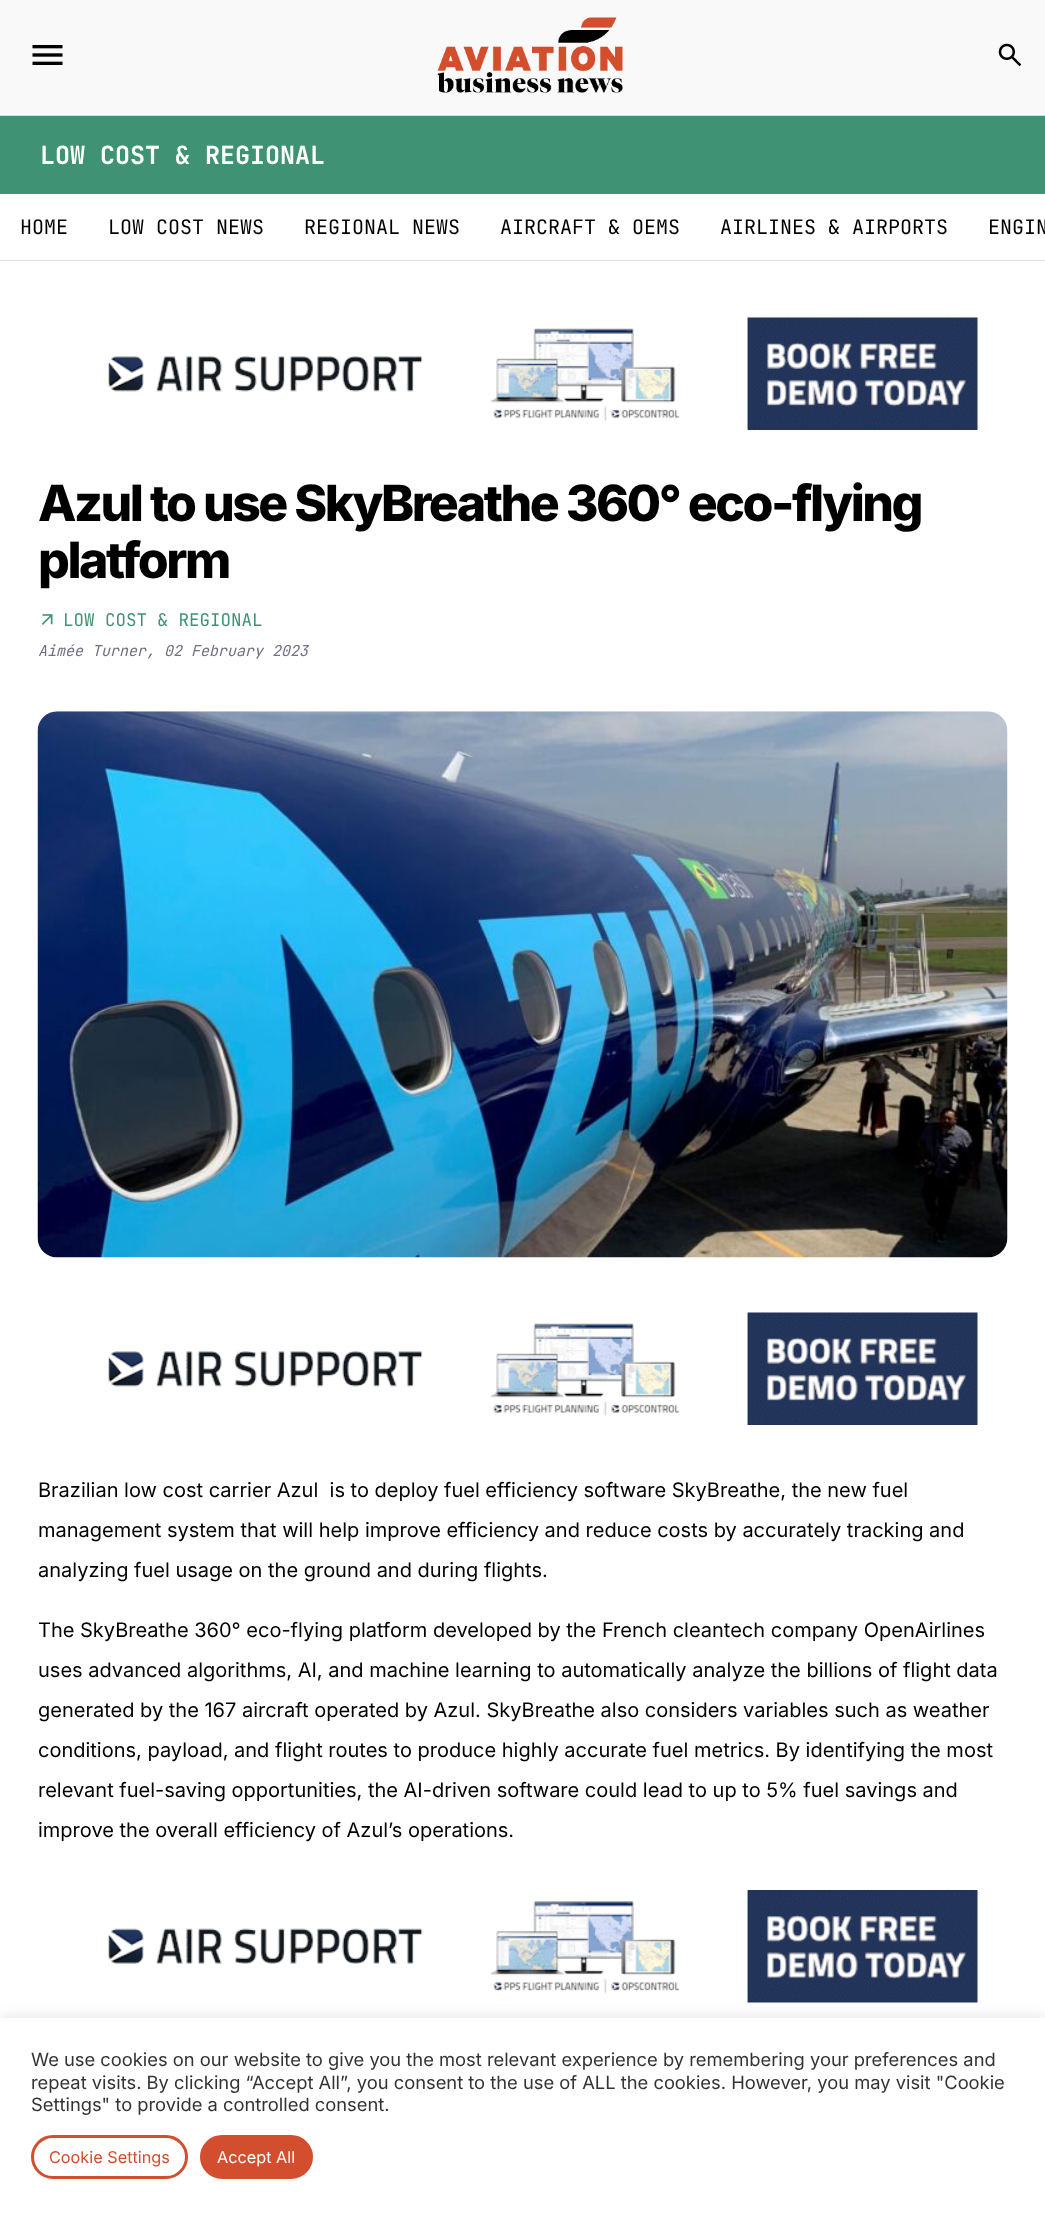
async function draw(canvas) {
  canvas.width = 1045;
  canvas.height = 2216;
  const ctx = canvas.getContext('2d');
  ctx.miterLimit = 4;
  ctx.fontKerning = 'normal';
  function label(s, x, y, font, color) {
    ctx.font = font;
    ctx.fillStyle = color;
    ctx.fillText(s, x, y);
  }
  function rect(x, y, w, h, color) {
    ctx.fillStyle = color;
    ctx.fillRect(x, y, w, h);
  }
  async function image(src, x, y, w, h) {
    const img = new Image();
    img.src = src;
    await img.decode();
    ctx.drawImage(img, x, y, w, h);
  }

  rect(0, 0, 1045, 2216, '#fff');
  rect(0, 0, 1045, 115, '#f9f9fa');
  rect(0, 115, 1045, 1, '#dcdce3');
  await image('assets/img1.png', 32, 45, 31, 20);
  await image('assets/img2.png', 437, 17, 186, 76);
  await image('assets/img3.png', 998, 43, 24, 24);
  rect(0, 116, 1045, 78, '#409274');
  label('LOW COST & REGIONAL', 40, 164, 'bold 25px JetBrains Mono', '#fff');
  rect(0, 260, 1045, 1, '#dcdce3');
  label('HOME', 20, 234, '20px JetBrains Mono', '#000');
  label('LOW COST NEWS', 108, 234, '20px JetBrains Mono', '#000');
  label('REGIONAL NEWS', 304, 234, '20px JetBrains Mono', '#000');
  label('AIRCRAFT & OEMS', 500, 234, '20px JetBrains Mono', '#000');
  label('AIRLINES & AIRPORTS', 720, 234, '20px JetBrains Mono', '#000');
  label('ENGIN', 988, 234, '20px JetBrains Mono', '#000');
  await image('assets/img4.png', 108, 317, 870, 113);
  ctx.letterSpacing = '-2.5px';
  label('Azul to use SkyBreathe 360° eco-flying', 38, 521, '800 50px Inter', '#000');
  label('platform', 38, 578, '800 50px Inter', '#000');
  await image('assets/img5.png', 41, 614, 12, 11);
  ctx.letterSpacing = '0px';
  label('LOW COST & REGIONAL', 63, 626, '17.5px JetBrains Mono', '#409274');
  label('Aimée Turner, 02 February 2023', 38, 656, 'italic 15px JetBrains Mono', '#6f7181');
  await image('assets/img6.png', 37, 711, 971, 547);
  await image('assets/img4.png', 108, 1312, 870, 113);
  label('Brazilian low cost carrier Azul  is to deploy fuel efficiency software SkyBreathe, the new fuel', 38, 1497, '20px Inter', '#000');
  label('management system that will help improve efficiency and reduce costs by accurately tracking and', 38, 1537, '20px Inter', '#000');
  label('analyzing fuel usage on the ground and during flights.', 38, 1577, '20px Inter', '#000');
  label('The SkyBreathe 360° eco-flying platform developed by the French cleantech company OpenAirlines', 38, 1637, '20px Inter', '#000');
  label('uses advanced algorithms, AI, and machine learning to automatically analyze the billions of flight data', 38, 1677, '20px Inter', '#000');
  label('generated by the 167 aircraft operated by Azul. SkyBreathe also considers variables such as weather', 38, 1717, '20px Inter', '#000');
  label('conditions, payload, and flight routes to produce highly accurate fuel metrics. By identifying the most', 38, 1757, '20px Inter', '#000');
  label('relevant fuel-saving opportunities, the AI-driven software could lead to up to 5% fuel savings and', 38, 1797, '20px Inter', '#000');
  label('improve the overall efficiency of Azul’s operations.', 38, 1837, '20px Inter', '#000');
  await image('assets/img7.png', 108, 1890, 870, 113);
  ctx.fillStyle = '#acabab4d';
  ctx.filter = 'blur(6px)';
  ctx.beginPath();
  ctx.rect(0, 2016, 1045, 199);
  ctx.fill();
  ctx.filter = 'none';
  rect(0, 2018, 1045, 198, '#fff');
  label('We use cookies on our website to give you the most relevant experience by remembering your preferences and', 31, 2066, '18.33px Inter', '#333');
  label('repeat visits. By clicking “Accept All”, you consent to the use of ALL the cookies. However, you may visit "Cookie', 31, 2089, '18.33px Inter', '#333');
  label('Settings" to provide a controlled consent.', 31, 2111, '18.33px Inter', '#333');
  ctx.beginPath();
  ctx.roundRect(32.5, 2136.5, 154, 41, 20.5);
  ctx.strokeStyle = '#d34e2e';
  ctx.lineWidth = 3;
  ctx.stroke();
  label('Cookie Settings', 49, 2163, '16.25px Inter', '#d34e2e');
  ctx.beginPath();
  ctx.roundRect(201.5, 2136.5, 110, 41, 20.5);
  ctx.fill();
  ctx.stroke();
  label('Accept All', 217, 2163, '16.25px Inter', '#fff');
}

draw(document.querySelector('canvas'));
